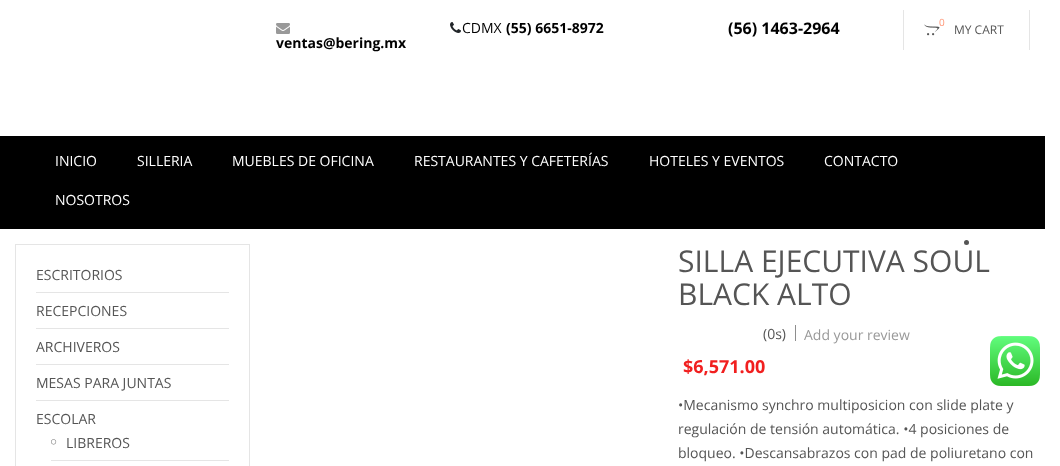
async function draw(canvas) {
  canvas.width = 1060;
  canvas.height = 466;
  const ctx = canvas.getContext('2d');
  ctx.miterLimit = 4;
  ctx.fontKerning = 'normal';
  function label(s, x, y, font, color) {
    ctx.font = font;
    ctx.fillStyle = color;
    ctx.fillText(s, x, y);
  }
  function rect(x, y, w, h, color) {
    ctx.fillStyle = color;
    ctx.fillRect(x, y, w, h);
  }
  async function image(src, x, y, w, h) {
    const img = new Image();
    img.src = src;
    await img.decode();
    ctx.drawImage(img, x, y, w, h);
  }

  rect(0, 0, 1060, 466, '#fff');
  await image('assets/img1.png', 450, 22, 11, 11);
  label('CDMX', 462, 33, '14px Open Sans', '#000');
  label('(55) 6651-8972', 506, 33, 'bold 14px Open Sans', '#000');
  label('(56) 1463-2964', 728, 34, 'bold 16px Open Sans', '#000');
  rect(1029, 10, 1, 40, '#e5e5e5');
  rect(903, 10, 1, 40, '#e5e5e5');
  await image('assets/img2.png', 924, 24, 16, 12);
  label('0', 939, 26, '10px Open Sans', '#ff9677');
  label('MY CART', 954, 34, '12px Open Sans', '#555');
  await image('assets/img3.png', 276, 23, 14, 11);
  label('ventas@bering.mx', 276, 48, 'bold 14px Open Sans', '#000');
  rect(0, 136, 1045, 93, '#000');
  label('INICIO', 55, 166, '14px Open Sans', '#fff');
  label('SILLERIA', 137, 166, '14px Open Sans', '#fff');
  label('MUEBLES DE OFICINA', 232, 166, '14px Open Sans', '#fff');
  label('RESTAURANTES Y CAFETERÍAS', 414, 166, '14px Open Sans', '#fff');
  label('HOTELES Y EVENTOS', 649, 166, '14px Open Sans', '#fff');
  label('CONTACTO', 824, 166, '14px Open Sans', '#fff');
  label('NOSOTROS', 55, 205, '14px Open Sans', '#fff');
  ctx.fillStyle = '#555';
  ctx.beginPath();
  ctx.arc(966.5, 242.5, 2.5, 0, 2 * Math.PI);
  ctx.fill();
  ctx.strokeStyle = '#e5e5e5';
  ctx.strokeRect(15.5, 244.5, 234, 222);
  rect(36, 292, 193, 1, '#e5e5e5');
  label('ESCRITORIOS', 36, 280, '14px Open Sans', '#555');
  rect(36, 328, 193, 1, '#e5e5e5');
  label('RECEPCIONES', 36, 316, '14px Open Sans', '#555');
  rect(36, 364, 193, 1, '#e5e5e5');
  label('ARCHIVEROS', 36, 352, '14px Open Sans', '#555');
  rect(36, 400, 193, 1, '#e5e5e5');
  label('MESAS PARA JUNTAS', 36, 388, '14px Open Sans', '#555');
  label('ESCOLAR', 36, 424, '14px Open Sans', '#555');
  rect(51, 460, 178, 1, '#e5e5e5');
  await image('assets/img4.png', 51, 439, 6, 6);
  label('LIBREROS', 66, 448, '14px Open Sans', '#555');
  label('SILLA EJECUTIVA SOUL', 678, 272, '30px Open Sans', '#555');
  label('BLACK ALTO', 678, 305, '30px Open Sans', '#555');
  rect(795, 325, 1, 16, '#8e8e8e');
  label('(0s)', 763, 339, '14px Open Sans', '#555');
  label('Add your review', 804, 340, '14px Open Sans', '#999');
  label('$6,571.00', 683, 373, 'bold 18px Open Sans', '#f11f1f');
  label('•Mecanismo synchro multiposicion con slide plate y', 678, 410, '14px Open Sans', '#555');
  label('regulación de tensión automática. •4 posiciones de', 678, 434, '14px Open Sans', '#555');
  label('bloqueo. •Descansabrazos con pad de poliuretano con', 678, 458, '14px Open Sans', '#555');
  await image('assets/img5.png', 990, 336, 50, 50);
}

draw(document.querySelector('canvas'));
